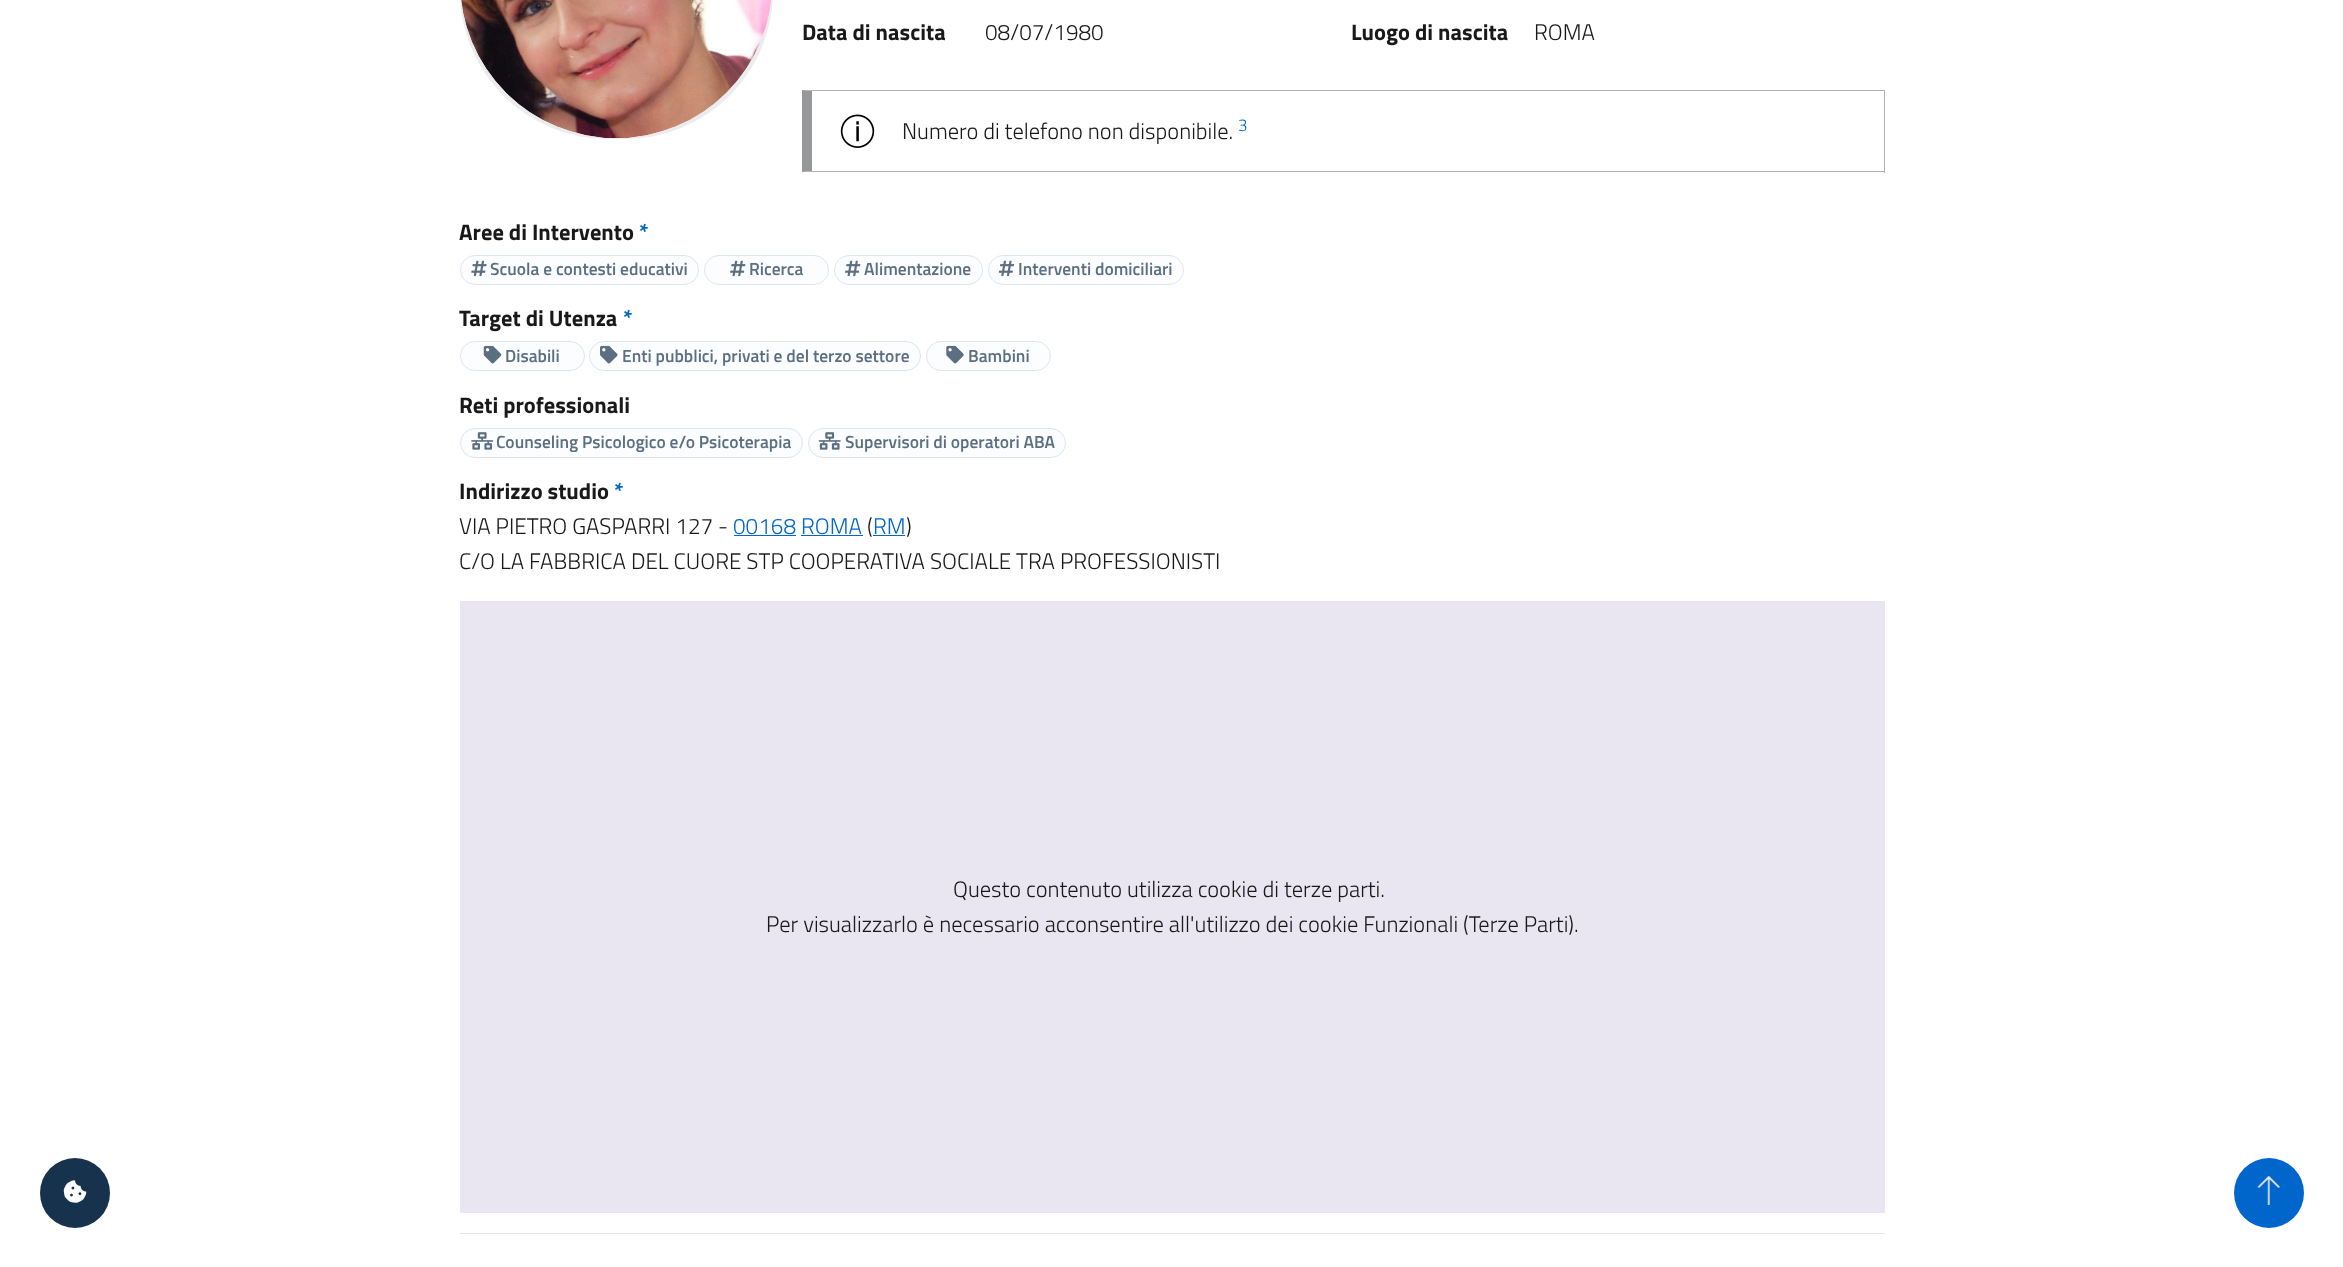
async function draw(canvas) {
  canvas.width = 2343;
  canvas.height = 1267;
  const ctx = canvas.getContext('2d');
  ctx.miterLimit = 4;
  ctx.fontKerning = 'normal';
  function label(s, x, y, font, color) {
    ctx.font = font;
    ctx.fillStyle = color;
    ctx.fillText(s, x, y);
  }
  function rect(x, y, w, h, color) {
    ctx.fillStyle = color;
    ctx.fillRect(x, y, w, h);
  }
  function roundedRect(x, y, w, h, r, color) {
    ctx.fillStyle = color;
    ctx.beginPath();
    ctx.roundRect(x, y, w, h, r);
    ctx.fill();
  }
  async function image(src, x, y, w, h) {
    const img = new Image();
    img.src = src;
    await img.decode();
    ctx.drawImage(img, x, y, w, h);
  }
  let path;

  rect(0, 0, 2343, 1267, '#fff');
  roundedRect(460, -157, 313, 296, 156.5, '#ebeced');
  await image('assets/img1.png', 461, 0, 310, 138);
  label('Data di nascita', 802, 40, 'bold 22.5px Titillium Web', '#19191a');
  label('08/07/1980', 985, 40, '300 22.5px Titillium Web', '#19191a');
  label('Luogo di nascita', 1351, 40, 'bold 22.5px Titillium Web', '#19191a');
  label('ROMA', 1534, 40, '300 22.5px Titillium Web', '#19191a');
  await image('assets/img2.png', 840, 114, 35, 34);
  ctx.fillStyle = '#b1b1b3';
  path = new Path2D('M802 90H1885L1884 91H812Z');
  ctx.fill(path);
  rect(1884, 90, 1, 83, '#b1b1b3');
  path = new Path2D('M1885 172H802L812 171H1884Z');
  ctx.fill(path);
  ctx.fillStyle = '#979899';
  path = new Path2D('M802 172V90L812 91V171Z');
  ctx.fill(path);
  label('Numero di telefono non disponibile.', 902, 139, '300 22.5px Titillium Web', '#19191a');
  label('3', 1238, 131, '300 17px Titillium Web', '#06c');
  label('Aree di Intervento', 459, 240, 'bold 22.5px Titillium Web', '#19191a');
  label('*', 639, 240, 'bold 22.5px Titillium Web', '#06c');
  ctx.fillStyle = '#fcfdff';
  ctx.beginPath();
  ctx.roundRect(460.5, 255.5, 238, 29, 14.5);
  ctx.fill();
  ctx.strokeStyle = '#dfe4f2';
  ctx.stroke();
  await image('assets/img3.png', 471, 260, 16, 17);
  label('Scuola e contesti educativi', 490, 275, '600 17.5px Titillium Web', '#5c6f82');
  ctx.fillStyle = '#fcfdff';
  ctx.beginPath();
  ctx.roundRect(704.5, 255.5, 124, 29, 14.5);
  ctx.fill();
  ctx.stroke();
  await image('assets/img4.png', 730, 260, 16, 17);
  label('Ricerca', 749, 275, '600 17.5px Titillium Web', '#5c6f82');
  ctx.fillStyle = '#fcfdff';
  ctx.beginPath();
  ctx.roundRect(834.5, 255.5, 148, 29, 14.5);
  ctx.fill();
  ctx.stroke();
  await image('assets/img4.png', 845, 260, 16, 17);
  label('Alimentazione', 864, 275, '600 17.5px Titillium Web', '#5c6f82');
  ctx.fillStyle = '#fcfdff';
  ctx.beginPath();
  ctx.roundRect(988.5, 255.5, 195, 29, 14.5);
  ctx.fill();
  ctx.stroke();
  await image('assets/img5.png', 998, 260, 17, 17);
  label('Interventi domiciliari', 1018, 275, '600 17.5px Titillium Web', '#5c6f82');
  label('Target di Utenza', 459, 326, 'bold 22.5px Titillium Web', '#19191a');
  label('*', 623, 326, 'bold 22.5px Titillium Web', '#06c');
  ctx.fillStyle = '#fcfdff';
  ctx.beginPath();
  ctx.roundRect(460.5, 341.5, 124, 29, 14.5);
  ctx.fill();
  ctx.stroke();
  await image('assets/img6.png', 483, 345, 19, 19);
  label('Disabili', 505, 362, '600 17.5px Titillium Web', '#5c6f82');
  ctx.fillStyle = '#fcfdff';
  ctx.beginPath();
  ctx.roundRect(589.5, 341.5, 331, 29, 14.5);
  ctx.fill();
  ctx.stroke();
  await image('assets/img7.png', 600, 345, 18, 19);
  label('Enti pubblici, privati e del terzo settore', 622, 362, '600 17.5px Titillium Web', '#5c6f82');
  ctx.fillStyle = '#fcfdff';
  ctx.beginPath();
  ctx.roundRect(926.5, 341.5, 124, 29, 14.5);
  ctx.fill();
  ctx.stroke();
  await image('assets/img8.png', 946, 345, 18, 19);
  label('Bambini', 968, 362, '600 17.5px Titillium Web', '#5c6f82');
  label('Reti professionali', 459, 413, 'bold 22.5px Titillium Web', '#19191a');
  ctx.fillStyle = '#fcfdff';
  ctx.beginPath();
  ctx.roundRect(460.5, 428.5, 342, 29, 14.5);
  ctx.fill();
  ctx.stroke();
  await image('assets/img9.png', 471, 432, 23, 18);
  label('Counseling Psicologico e/o Psicoterapia', 496, 448, '600 17.5px Titillium Web', '#5c6f82');
  ctx.fillStyle = '#fcfdff';
  ctx.beginPath();
  ctx.roundRect(808.5, 428.5, 257, 29, 14.5);
  ctx.fill();
  ctx.stroke();
  await image('assets/img10.png', 818, 432, 23, 18);
  label('Supervisori di operatori ABA', 845, 448, '600 17.5px Titillium Web', '#5c6f82');
  label('Indirizzo studio', 459, 499, 'bold 22.5px Titillium Web', '#19191a');
  label('*', 614, 499, 'bold 22.5px Titillium Web', '#06c');
  label('VIA PIETRO GASPARRI 127 -', 459, 534, '300 22.5px Titillium Web', '#19191a');
  label('00168 ROMA', 733, 534, '300 22.5px Titillium Web', '#06c');
  rect(734, 535, 62, 1, '#06c');
  label('(', 867, 534, '300 22.5px Titillium Web', '#19191a');
  label('RM', 873, 534, '300 22.5px Titillium Web', '#06c');
  rect(873, 535, 32, 1, '#06c');
  label(')', 906, 534, '300 22.5px Titillium Web', '#19191a');
  rect(801, 535, 62, 1, '#06c');
  label('C/O LA FABBRICA DEL CUORE STP COOPERATIVA SOCIALE TRA PROFESSIONISTI', 459, 569, '300 22.5px Titillium Web', '#19191a');
  rect(460, 601, 1425, 612, '#e9e6f2');
  label('Questo contenuto utilizza cookie di terze parti.', 953, 897, '300 22.5px Titillium Web', '#19191a');
  label('Per visualizzarlo è necessario acconsentire all\'utilizzo dei cookie Funzionali (Terze Parti).', 766, 932, '300 22.5px Titillium Web', '#19191a');
  rect(460, 1233, 1425, 1, '#e6e6e6');
  ctx.fillStyle = '#17324d';
  ctx.beginPath();
  ctx.arc(75, 1193, 35, 0, 2 * Math.PI);
  ctx.fill();
  await image('assets/img11.png', 63, 1180, 24, 23);
  ctx.fillStyle = '#06c';
  ctx.beginPath();
  ctx.arc(2269, 1193, 35, 0, 2 * Math.PI);
  ctx.fill();
  await image('assets/img12.png', 2257, 1175, 23, 30);
}

draw(document.querySelector('canvas'));
